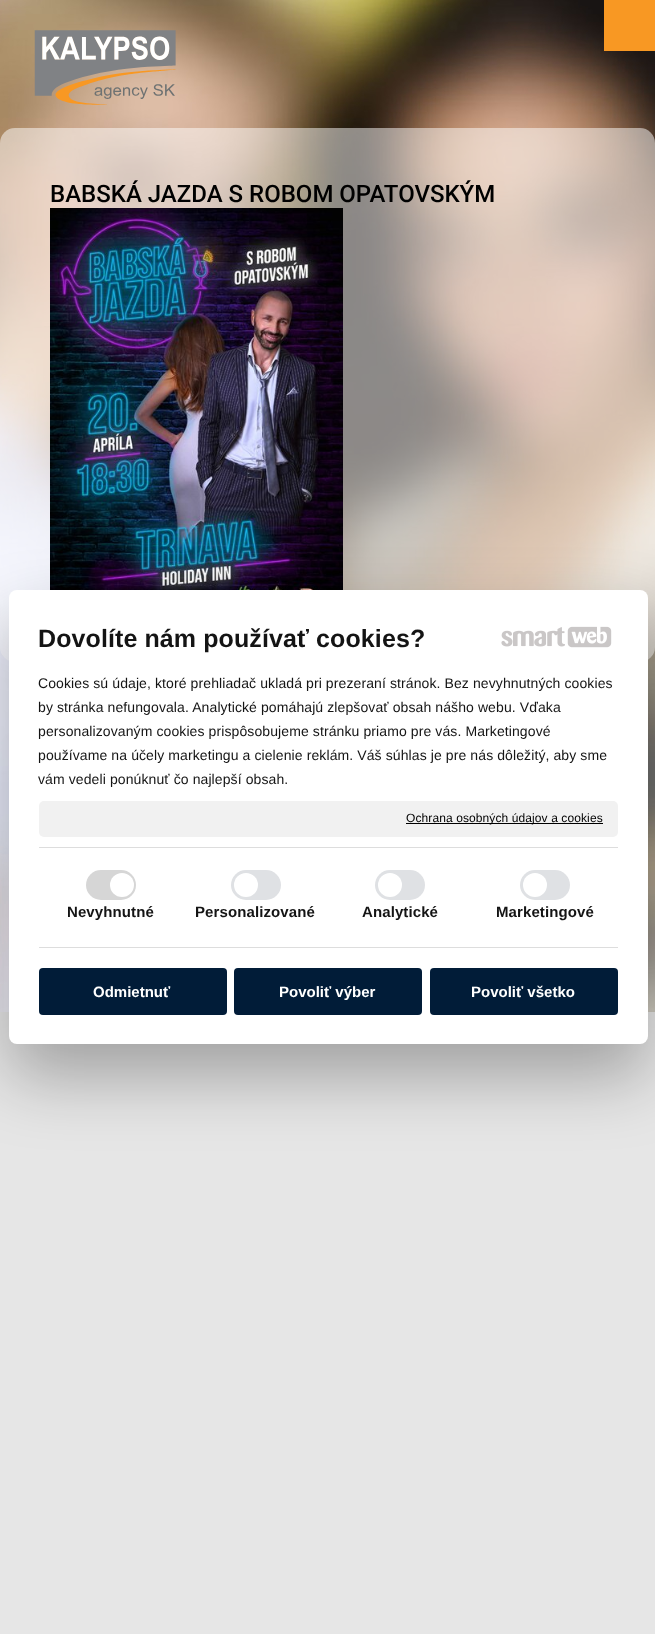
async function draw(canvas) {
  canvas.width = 655;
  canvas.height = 1634;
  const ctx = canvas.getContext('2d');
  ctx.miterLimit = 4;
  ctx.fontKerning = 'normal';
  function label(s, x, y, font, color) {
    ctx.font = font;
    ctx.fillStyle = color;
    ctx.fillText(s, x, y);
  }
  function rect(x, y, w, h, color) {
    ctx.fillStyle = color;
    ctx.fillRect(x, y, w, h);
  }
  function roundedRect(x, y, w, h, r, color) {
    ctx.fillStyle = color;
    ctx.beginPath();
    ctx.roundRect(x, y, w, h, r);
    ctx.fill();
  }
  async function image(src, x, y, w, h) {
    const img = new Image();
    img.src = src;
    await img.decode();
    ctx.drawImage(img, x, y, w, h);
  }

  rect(0, 0, 655, 1634, '#e6e6e6');
  await image('assets/img1.png', 0, 0, 655, 1012);
  rect(604, 0, 51, 51, '#f89823');
  await image('assets/img2.png', 34, 30, 142, 75);
  roundedRect(0, 128, 655, 534, 15, '#ffffff80');
  label('BABSKÁ JAZDA S ROBOM OPATOVSKÝM', 50, 202, '500 24px Roboto', '#000');
  await image('assets/img3.png', 50, 208, 293, 382);
  ctx.fillStyle = '#0000004d';
  ctx.filter = 'blur(34px)';
  ctx.beginPath();
  ctx.roundRect(9, 622, 639, 454, 8);
  ctx.fill();
  ctx.filter = 'none';
  roundedRect(9, 590, 639, 454, 8, '#fff');
  ctx.letterSpacing = '0.1px';
  label('Dovolíte nám používať cookies?', 38, 647, 'bold 25px Liberation Sans', '#141414');
  await image('assets/img4.png', 501, 627, 64, 20);
  await image('assets/img5.png', 567, 626, 45, 22);
  label('Cookies sú údaje, ktoré prehliadač ukladá pri prezeraní stránok. Bez nevyhnutných cookies', 38, 688, '14px Liberation Sans', '#141414');
  label('by stránka nefungovala. Analytické pomáhajú zlepšovať obsah nášho webu. Vďaka', 38, 712, '14px Liberation Sans', '#141414');
  label('personalizovaným cookies prispôsobujeme stránku priamo pre vás. Marketingové', 38, 736, '14px Liberation Sans', '#141414');
  label('používame na účely marketingu a cielenie reklám. Váš súhlas je pre nás dôležitý, aby sme', 38, 760, '14px Liberation Sans', '#141414');
  label('vám vedeli ponúknuť čo najlepší obsah.', 38, 784, '14px Liberation Sans', '#141414');
  roundedRect(39, 801, 579, 36, 5, '#f1f1f1');
  rect(406, 823, 197, 1, '#000');
  label('Ochrana osobných údajov a cookies', 406, 822, '12px Liberation Sans', '#000');
  rect(39, 847, 579, 1, '#ddd');
  rect(39, 947, 579, 1, '#ddd');
  roundedRect(86, 870, 50, 30, 15, '#d6d6d6');
  ctx.fillStyle = '#fff';
  ctx.beginPath();
  ctx.arc(122, 885, 12, 0, 2 * Math.PI);
  ctx.fill();
  label('Nevyhnutné', 67, 917, 'bold 15px Liberation Sans', '#141414');
  roundedRect(231, 870, 50, 30, 15, '#dfe1e4');
  ctx.fillStyle = '#fff';
  ctx.beginPath();
  ctx.arc(246, 885, 12, 0, 2 * Math.PI);
  ctx.fill();
  label('Personalizované', 195, 917, 'bold 15px Liberation Sans', '#141414');
  roundedRect(375, 870, 50, 30, 15, '#dfe1e4');
  ctx.fillStyle = '#fff';
  ctx.beginPath();
  ctx.arc(390, 885, 12, 0, 2 * Math.PI);
  ctx.fill();
  label('Analytické', 362, 917, 'bold 15px Liberation Sans', '#141414');
  roundedRect(520, 870, 50, 30, 15, '#dfe1e4');
  ctx.fillStyle = '#fff';
  ctx.beginPath();
  ctx.arc(535, 885, 12, 0, 2 * Math.PI);
  ctx.fill();
  label('Marketingové', 496, 917, 'bold 15px Liberation Sans', '#141414');
  roundedRect(39, 968, 188, 47, 4, '#011c38');
  ctx.letterSpacing = '0px';
  label('Odmietnuť', 93, 997, 'bold 15px Liberation Sans', '#fff');
  roundedRect(234, 968, 188, 47, 4, '#011c38');
  label('Povoliť výber', 279, 997, 'bold 15px Liberation Sans', '#fff');
  roundedRect(430, 968, 188, 47, 4, '#011c38');
  label('Povoliť všetko', 471, 997, 'bold 15px Liberation Sans', '#fff');
}

draw(document.querySelector('canvas'));
